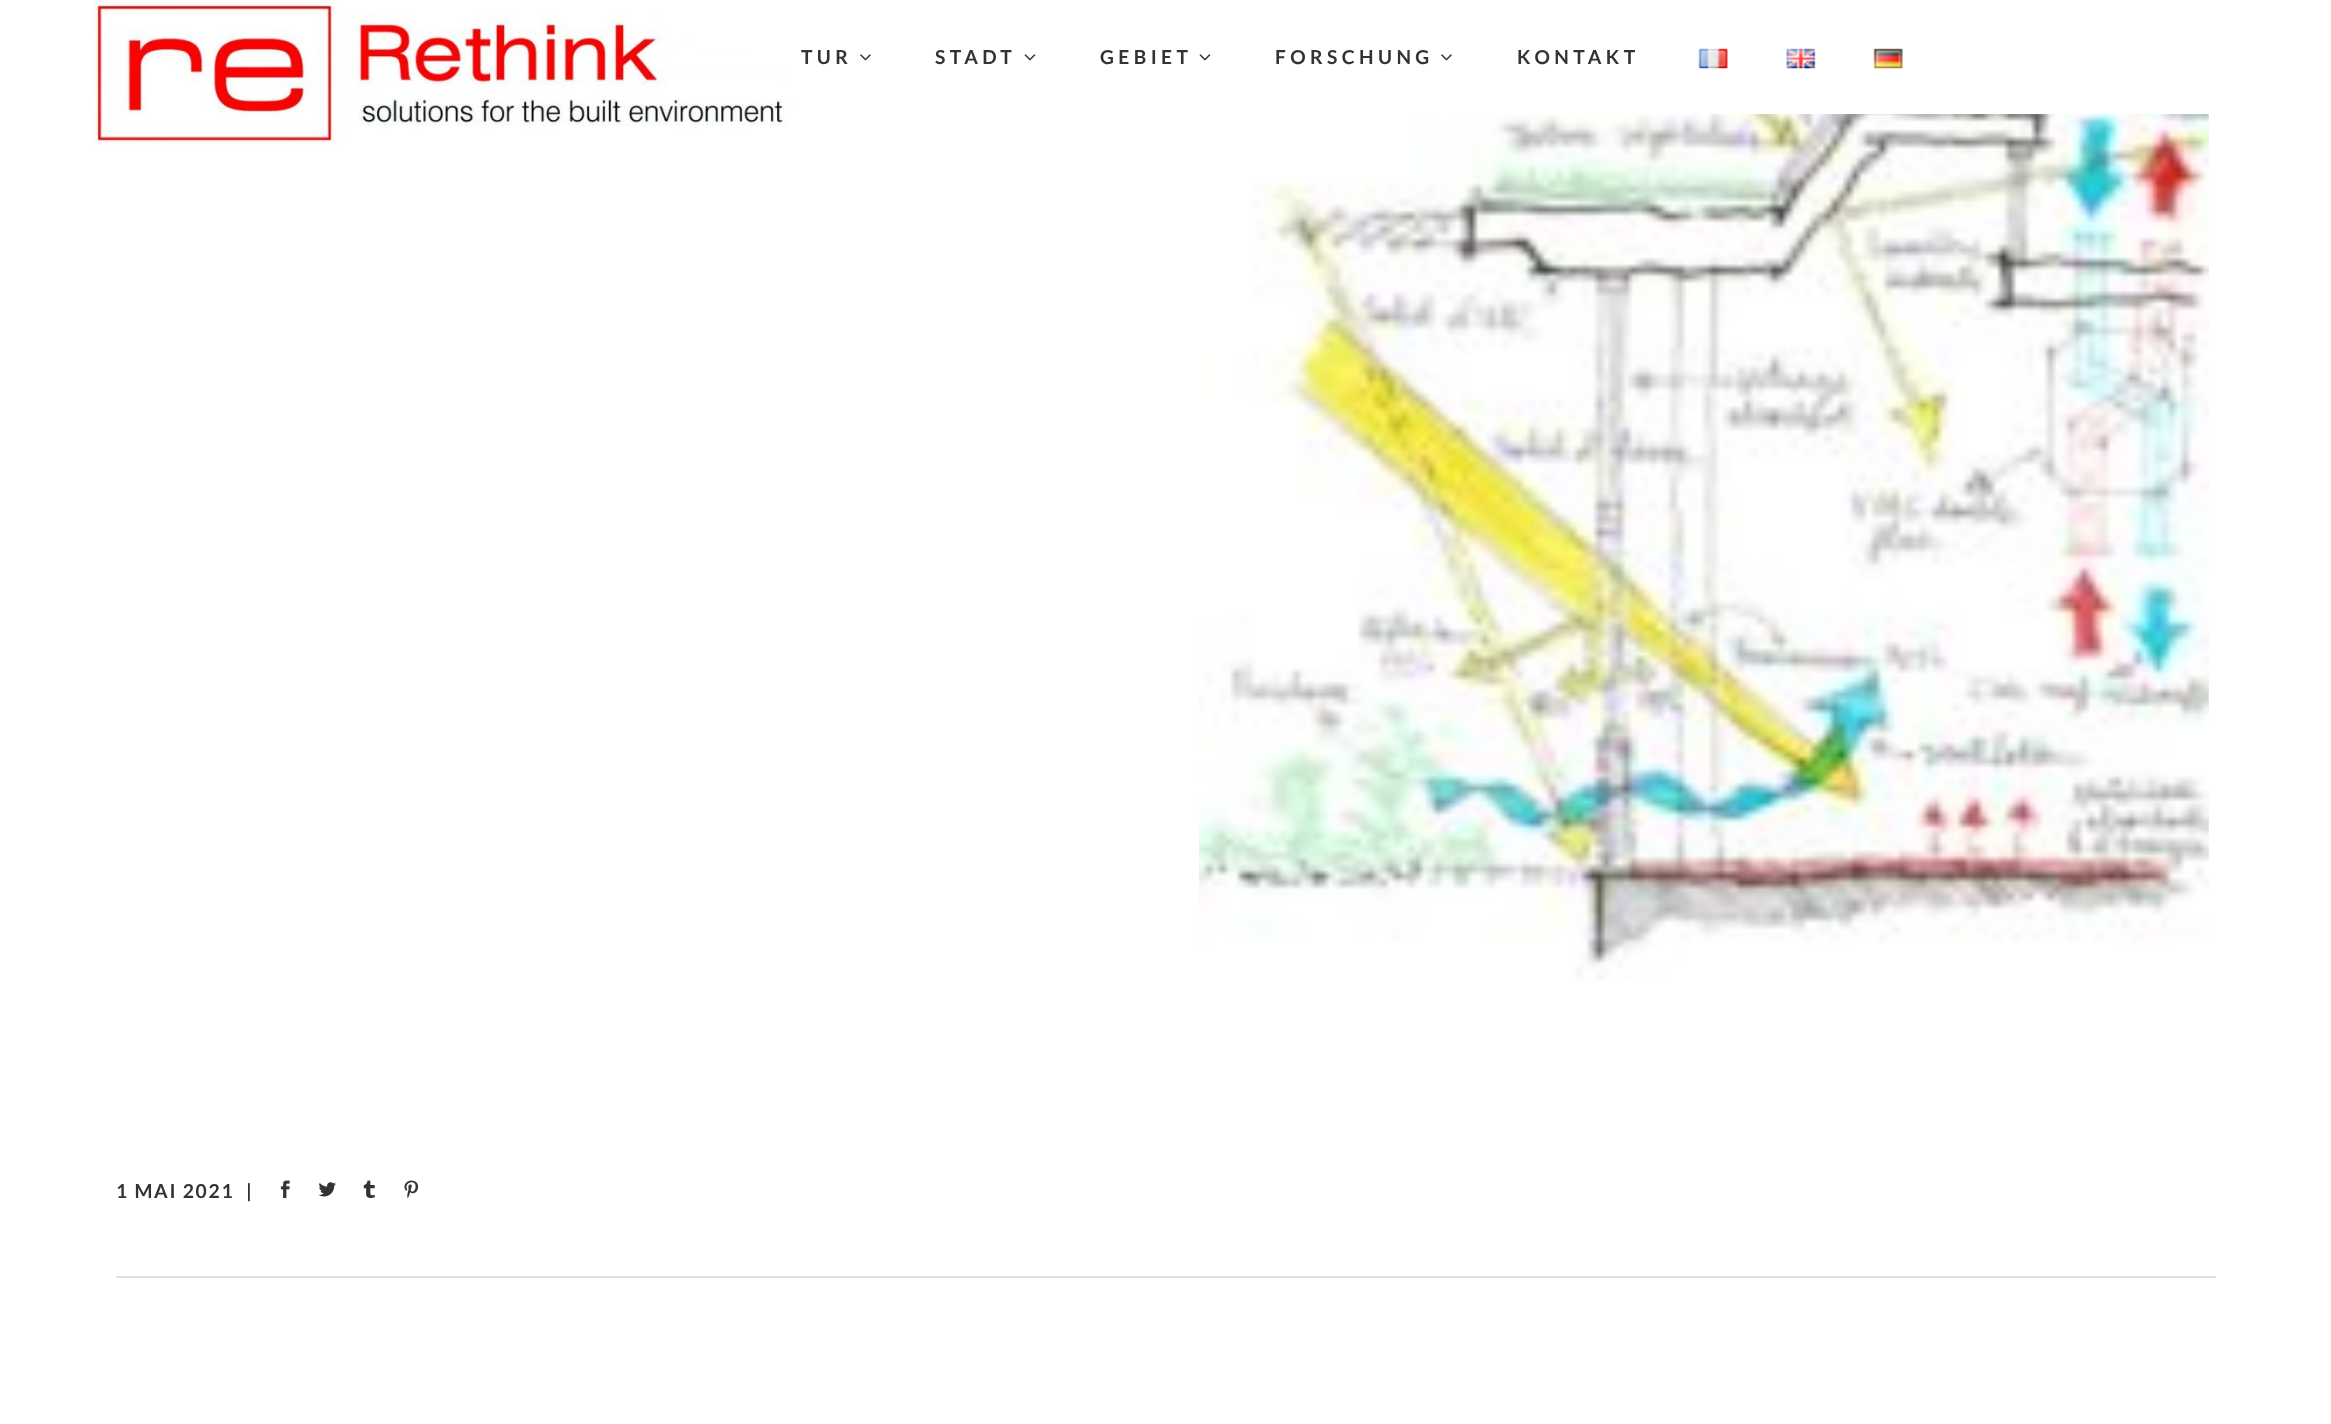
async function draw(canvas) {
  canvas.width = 2331;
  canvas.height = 1424;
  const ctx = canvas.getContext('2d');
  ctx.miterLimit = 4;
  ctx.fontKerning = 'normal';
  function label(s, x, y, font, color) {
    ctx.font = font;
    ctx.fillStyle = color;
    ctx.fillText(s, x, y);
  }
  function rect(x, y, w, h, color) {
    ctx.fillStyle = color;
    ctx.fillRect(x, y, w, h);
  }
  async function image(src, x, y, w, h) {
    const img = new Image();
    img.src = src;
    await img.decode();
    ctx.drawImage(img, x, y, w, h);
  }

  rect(0, 0, 2331, 1424, '#fff');
  await image('assets/img1.png', 93, 0, 700, 145);
  ctx.letterSpacing = '4.4px';
  label('TUR', 801, 64, 'bold 19.25px Lato', '#333');
  await image('assets/img2.png', 860, 54, 11, 7);
  label('STADT', 935, 64, 'bold 19.25px Lato', '#333');
  await image('assets/img3.png', 1024, 54, 12, 7);
  label('GEBIET', 1100, 64, 'bold 19.25px Lato', '#333');
  await image('assets/img3.png', 1199, 54, 12, 7);
  label('FORSCHUNG', 1275, 64, 'bold 19.25px Lato', '#333');
  await image('assets/img2.png', 1441, 54, 11, 7);
  label('KONTAKT', 1517, 64, 'bold 19.25px Lato', '#333');
  await image('assets/img4.png', 1698, 48, 30, 21);
  await image('assets/img5.png', 1786, 48, 30, 21);
  await image('assets/img6.png', 1873, 48, 30, 21);
  await image('assets/img7.png', 1199, 114, 1010, 867);
  ctx.letterSpacing = '1.75px';
  label('1 MAI 2021', 116, 1198, 'bold 19.25px Lato', '#333');
  label('|', 246, 1198, 'bold 19.25px Lato', '#333');
  await image('assets/img8.png', 280, 1180, 10, 19);
  await image('assets/img9.png', 318, 1182, 18, 15);
  await image('assets/img10.png', 363, 1180, 12, 19);
  await image('assets/img11.png', 404, 1180, 15, 18);
  rect(116, 1276, 2100, 2, '#dddfe1');
}

draw(document.querySelector('canvas'));
